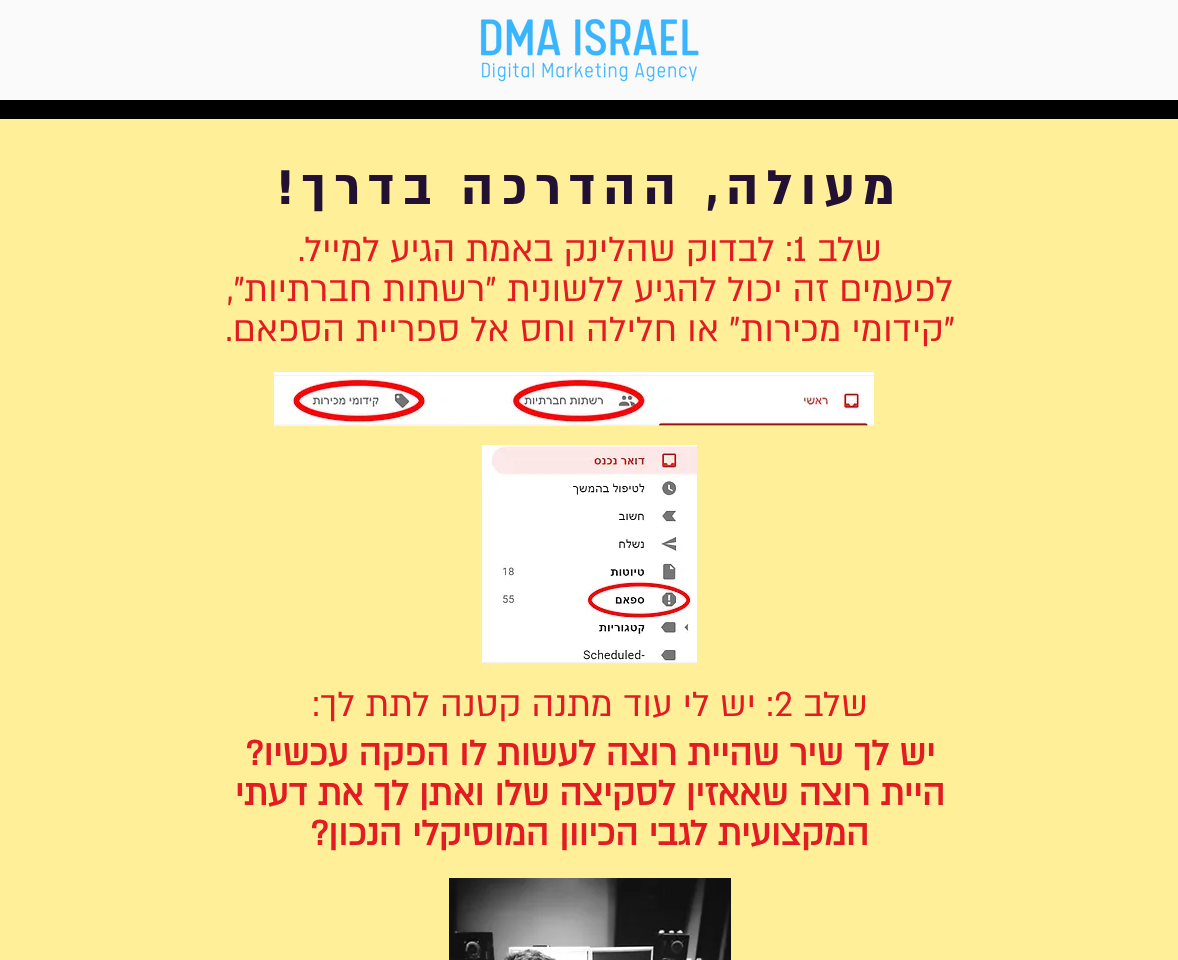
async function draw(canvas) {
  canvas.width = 1178;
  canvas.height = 960;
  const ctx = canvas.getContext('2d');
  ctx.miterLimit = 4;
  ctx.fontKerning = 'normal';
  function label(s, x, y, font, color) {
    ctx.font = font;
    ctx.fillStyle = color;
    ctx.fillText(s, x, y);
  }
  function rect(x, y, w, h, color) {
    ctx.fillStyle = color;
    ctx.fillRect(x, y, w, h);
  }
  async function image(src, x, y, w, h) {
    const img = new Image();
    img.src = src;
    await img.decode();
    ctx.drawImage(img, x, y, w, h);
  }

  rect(0, 0, 1178, 960, '#000');
  rect(0, 0, 1178, 100, '#fafafa');
  await image('assets/img1.png', 480, 18, 219, 64);
  rect(0, 119, 1178, 841, '#ffef98');
  ctx.letterSpacing = '8.4px';
  ctx.direction = 'rtl';
  label('מעולה, ההדרכה בדרך!', 903, 204, 'bold 56px "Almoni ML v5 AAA"', '#213');
  ctx.letterSpacing = '0px';
  label('שלב', 882, 261, '40px "Almoni ML v5 AAA"', '#e21c21');
  ctx.direction = 'ltr';
  label('1', 793, 261, '40px "Almoni ML v5 AAA"', '#e21c21');
  ctx.direction = 'rtl';
  label(': לבדוק שהלינק באמת הגיע למייל.', 793, 261, '40px "Almoni ML v5 AAA"', '#e21c21');
  label('לפעמים זה יכול להגיע ללשונית "רשתות חברתיות",', 953, 301, '40px "Almoni ML v5 AAA"', '#e21c21');
  label('"קידומי מכירות" או חלילה וחס אל ספריית הספאם.', 955, 341, '40px "Almoni ML v5 AAA"', '#e21c21');
  await image('assets/img2.png', 274, 372, 600, 54);
  await image('assets/img3.png', 482, 445, 215, 218);
  label('שלב', 868, 716, '40px "Almoni ML v5 AAA"', '#e21c21');
  ctx.direction = 'ltr';
  label('2', 774, 716, '40px "Almoni ML v5 AAA"', '#e21c21');
  ctx.direction = 'rtl';
  label(': יש לי עוד מתנה קטנה לתת לך:', 774, 716, '40px "Almoni ML v5 AAA"', '#e21c21');
  label('יש לך שיר שהיית רוצה לעשות לו הפקה עכשיו?', 935, 765, 'bold 40px "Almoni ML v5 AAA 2"', '#e21c21');
  label('היית רוצה שאאזין לסקיצה שלו ואתן לך את דעתי', 945, 805, 'bold 40px "Almoni ML v5 AAA 2"', '#e21c21');
  label('המקצועית לגבי הכיוון המוסיקלי הנכון?', 869, 845, 'bold 40px "Almoni ML v5 AAA 2"', '#e21c21');
  await image('assets/img4.png', 449, 878, 282, 82);
}

draw(document.querySelector('canvas'));
